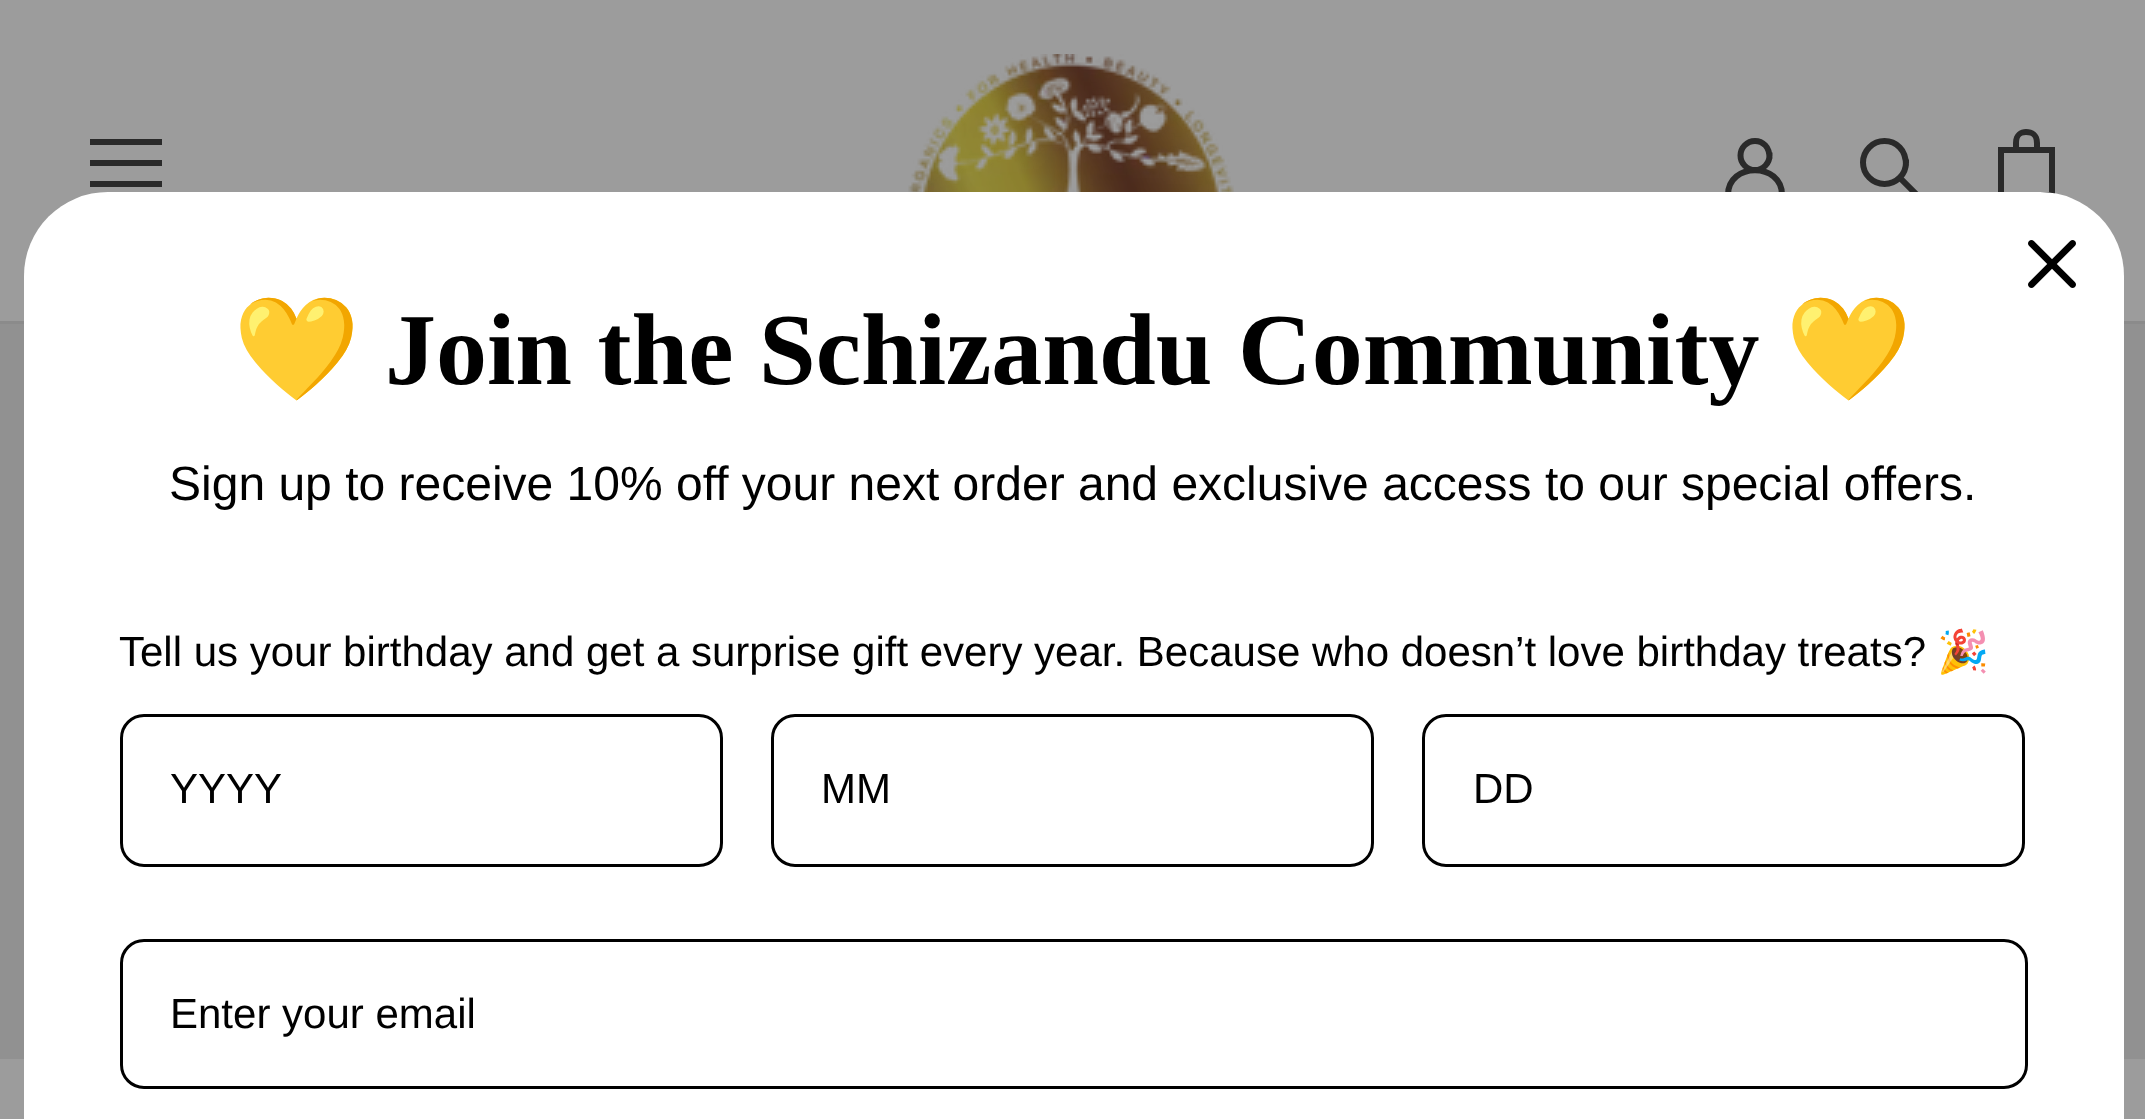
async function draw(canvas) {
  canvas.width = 2145;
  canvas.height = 1119;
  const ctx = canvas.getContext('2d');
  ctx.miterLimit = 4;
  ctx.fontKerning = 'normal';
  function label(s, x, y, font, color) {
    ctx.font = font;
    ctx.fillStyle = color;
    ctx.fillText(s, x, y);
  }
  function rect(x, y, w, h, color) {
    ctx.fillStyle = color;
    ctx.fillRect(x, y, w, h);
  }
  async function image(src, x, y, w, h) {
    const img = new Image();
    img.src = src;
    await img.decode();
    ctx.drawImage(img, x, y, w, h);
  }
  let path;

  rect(0, 0, 2145, 1119, '#919191');
  rect(0, 0, 2145, 321, '#9c9c9c');
  rect(0, 321, 2145, 3, '#8b8b8b');
  ctx.fillStyle = '#2a2a2a';
  path = new Path2D('M90 187V181H162V187ZM90 160H162V166H90ZM90 139H162V145H90Z');
  ctx.fill(path);
  await image('assets/img1.png', 908, 54, 326, 138);
  path = new Path2D('M1728 195C1728 162 1782 162 1782 195');
  ctx.strokeStyle = '#2a2a2a';
  ctx.lineWidth = 6;
  ctx.lineCap = 'square';
  ctx.stroke(path);
  ctx.beginPath();
  ctx.arc(1755, 155.5, 14.5, 0, 2 * Math.PI);
  ctx.stroke();
  path = new Path2D('M1917 195L1900 178');
  ctx.stroke(path);
  ctx.beginPath();
  ctx.arc(1884.5, 162.5, 21.5, 0, 2 * Math.PI);
  ctx.stroke();
  path = new Path2D('M1998 198V147H2055V198ZM2049 153H2004V192H2049ZM2034 144C2034 138 2033 135 2026 135C2020 135 2019 138 2019 144V147H2013V143C2013 133 2020 129 2026 129C2033 129 2040 133 2040 143V147H2034Z');
  ctx.fill(path);
  rect(0, 1059, 2145, 60, '#9c9c9c');
  ctx.fillStyle = '#fff';
  ctx.beginPath();
  ctx.roundRect(24, 192, 2100, 927, [84, 84, 0, 0]);
  ctx.fill();
  await image('assets/img2.png', 2028, 240, 48, 48);
  label('💛', 233, 384, 'bold 102px Noto Color Emoji', '#000');
  label('Join the Schizandu Community', 385, 384, 'bold 102px Liberation Serif', '#000');
  label('💛', 1785, 384, 'bold 102px Noto Color Emoji', '#000');
  label('Sign up to receive 10% off your next order and exclusive access to our special offers.', 169, 500, '48px Liberation Sans', '#000');
  label('Tell us your birthday and get a surprise gift every year. Because who doesn’t love birthday treats?', 119, 666, '42px Liberation Sans', '#000');
  label('🎉', 1937, 666, '42px Noto Color Emoji', '#000');
  ctx.beginPath();
  ctx.roundRect(121.5, 715.5, 600, 150, 22.5);
  ctx.strokeStyle = '#000';
  ctx.lineWidth = 3;
  ctx.stroke();
  label('YYYY', 170, 803, '42px Liberation Sans', '#000');
  ctx.beginPath();
  ctx.roundRect(772.5, 715.5, 600, 150, 22.5);
  ctx.stroke();
  label('MM', 821, 803, '42px Liberation Sans', '#000');
  ctx.beginPath();
  ctx.roundRect(1423.5, 715.5, 600, 150, 22.5);
  ctx.stroke();
  label('DD', 1473, 803, '42px Liberation Sans', '#000');
  ctx.beginPath();
  ctx.roundRect(121.5, 940.5, 1905, 147, 22.5);
  ctx.stroke();
  label('Enter your email', 170, 1028, '42px Liberation Sans', '#000');
}

draw(document.querySelector('canvas'));
